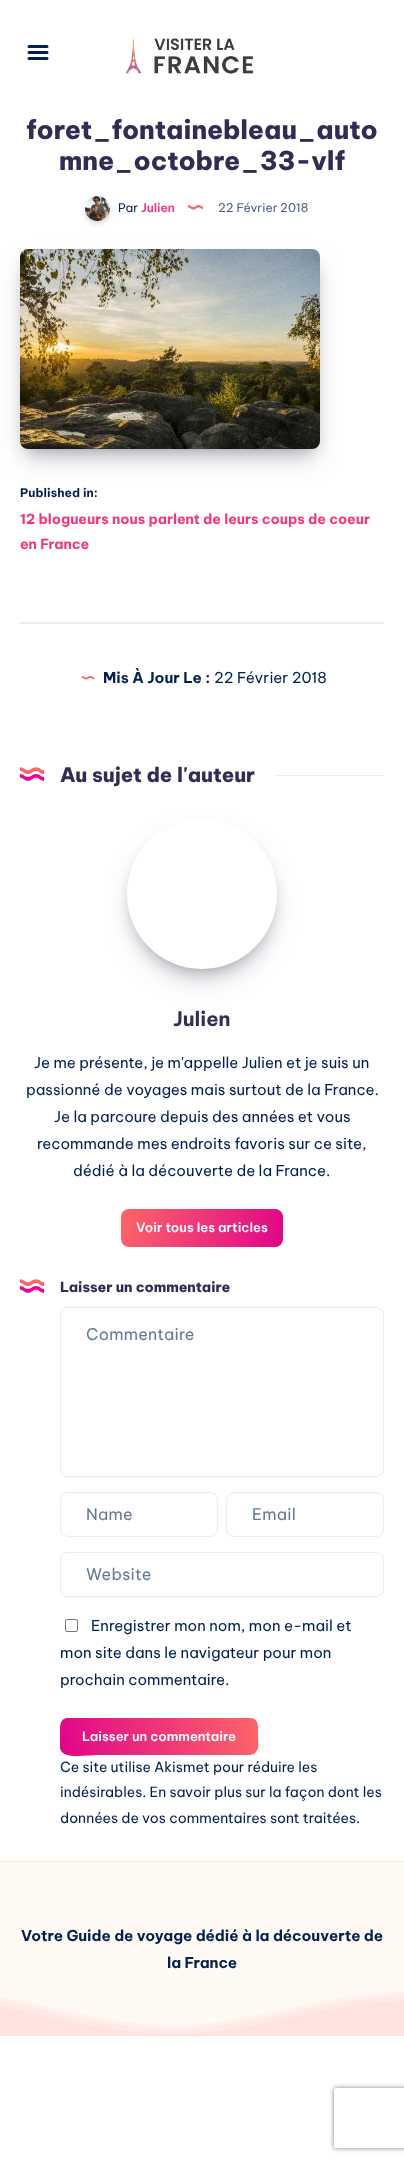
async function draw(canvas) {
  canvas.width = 404;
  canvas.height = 2162;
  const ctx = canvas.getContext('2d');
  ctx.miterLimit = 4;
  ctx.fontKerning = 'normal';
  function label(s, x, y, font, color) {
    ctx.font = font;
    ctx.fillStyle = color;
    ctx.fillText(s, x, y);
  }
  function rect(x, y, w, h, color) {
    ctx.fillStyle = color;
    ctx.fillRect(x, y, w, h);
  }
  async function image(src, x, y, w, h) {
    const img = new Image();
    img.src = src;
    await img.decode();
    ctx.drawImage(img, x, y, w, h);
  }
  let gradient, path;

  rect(0, 0, 404, 2162, '#fff');
  await image('assets/img1.png', 27, 45, 22, 15);
  await image('assets/img2.png', 125, 38, 128, 36);
  label('foret_fontainebleau_auto', 26, 139, '800 26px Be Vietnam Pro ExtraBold', '#302d55');
  label('mne_octobre_33-vlf', 59, 170, '800 26px Be Vietnam Pro ExtraBold', '#302d55');
  ctx.fillStyle = '#00000026';
  ctx.filter = 'blur(2.5px)';
  ctx.beginPath();
  ctx.roundRect(85, 199, 25, 25, 12.5);
  ctx.fill();
  ctx.filter = 'none';
  await image('assets/img3.png', 85, 196, 25, 25);
  label('Par', 118, 212, '12px Be Vietnam Pro', '#002050');
  label('Julien', 141, 212, '600 12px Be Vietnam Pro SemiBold', '#f43676');
  await image('assets/img4.png', 188, 205, 15, 5);
  label('22 Février 2018', 218, 212, '12px Be Vietnam Pro', '#4d6385');
  ctx.fillStyle = '#32325d40';
  ctx.filter = 'blur(13.5px)';
  ctx.beginPath();
  ctx.roundRect(25, 267, 290, 190, 3);
  ctx.fill();
  ctx.filter = 'none';
  ctx.fillStyle = '#0000004d';
  ctx.filter = 'blur(8px)';
  ctx.beginPath();
  ctx.rect(28, 265, 284, 184);
  ctx.fill();
  ctx.filter = 'none';
  await image('assets/img5.png', 20, 249, 300, 200);
  ctx.letterSpacing = '0.1px';
  label('Published in:', 20, 497, 'bold 12px Be Vietnam Pro', '#002050');
  ctx.letterSpacing = '0px';
  label('12 blogueurs nous parlent de leurs coups de coeur', 20, 524, 'bold 14px Be Vietnam Pro', '#f43676');
  label('en France', 20, 549, 'bold 14px Be Vietnam Pro', '#f43676');
  rect(20, 622, 364, 2, '#e6edf6');
  await image('assets/img6.png', 82, 676, 13, 4);
  label('Mis À Jour Le :', 103, 683, 'bold 15px Be Vietnam Pro', '#002050');
  label('22 Février 2018', 214, 683, '15px Be Vietnam Pro', '#002050');
  await image('assets/img7.png', 20, 767, 24, 14);
  label('Au sujet de l\'auteur', 60, 782, '800 20px Be Vietnam Pro ExtraBold', '#302d55');
  rect(275, 775, 109, 1, '#e6edf6');
  ctx.save();
  path = new Path2D('M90 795H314V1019H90ZM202 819C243.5 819 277 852.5 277 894C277 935.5 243.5 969 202 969C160.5 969 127 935.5 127 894C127 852.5 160.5 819 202 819Z');
  ctx.clip(path, 'evenodd');
  ctx.fillStyle = '#32325d40';
  ctx.filter = 'blur(13.5px)';
  ctx.beginPath();
  ctx.roundRect(132, 837, 140, 140, 70);
  ctx.fill();
  ctx.filter = 'none';
  ctx.restore();
  ctx.save();
  path = new Path2D('M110 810H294V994H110ZM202 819C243.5 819 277 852.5 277 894C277 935.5 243.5 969 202 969C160.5 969 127 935.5 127 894C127 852.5 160.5 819 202 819Z');
  ctx.clip(path, 'evenodd');
  ctx.fillStyle = '#0000004d';
  ctx.filter = 'blur(8px)';
  ctx.beginPath();
  ctx.roundRect(135, 835, 134, 134, 67);
  ctx.fill();
  ctx.filter = 'none';
  ctx.restore();
  label('Julien', 173, 1026, 'bold 20px Be Vietnam Pro', '#302d55');
  label('Je me présente, je m\'appelle Julien et je suis un', 34, 1068, '15px Be Vietnam Pro', '#002050');
  label('passionné de voyages mais surtout de la France.', 26, 1095, '15px Be Vietnam Pro', '#002050');
  label('Je la parcoure depuis des années et vous', 54, 1122, '15px Be Vietnam Pro', '#002050');
  label('recommande mes endroits favoris sur ce site,', 37, 1149, '15px Be Vietnam Pro', '#002050');
  label('dédié à la découverte de la France.', 73, 1176, '15px Be Vietnam Pro', '#002050');
  gradient = ctx.createLinearGradient(121, 1209, 283, 1247);
  gradient.addColorStop(0, '#fc6668');
  gradient.addColorStop(1, '#e10489');
  ctx.fillStyle = gradient;
  ctx.beginPath();
  ctx.roundRect(121, 1209, 162, 38, 8);
  ctx.fill();
  label('Voir tous les articles', 136, 1232, '600 13px Be Vietnam Pro SemiBold', '#fff');
  await image('assets/img7.png', 20, 1279, 24, 14);
  label('Laisser un commentaire', 60, 1292, '800 14px Be Vietnam Pro ExtraBold', '#302d55');
  ctx.beginPath();
  ctx.roundRect(60.5, 1307.5, 323, 169, 7.5);
  ctx.strokeStyle = '#e6edf6';
  ctx.stroke();
  ctx.letterSpacing = '0.25px';
  label('Commentaire', 86, 1340, '16px Be Vietnam Pro', '#667995');
  ctx.beginPath();
  ctx.roundRect(60.5, 1492.5, 157, 44, 7.5);
  ctx.stroke();
  label('Name', 86, 1520, '16px Be Vietnam Pro', '#667995');
  ctx.beginPath();
  ctx.roundRect(226.5, 1492.5, 157, 44, 7.5);
  ctx.stroke();
  label('Email', 252, 1520, '16px Be Vietnam Pro', '#667995');
  ctx.beginPath();
  ctx.roundRect(60.5, 1552.5, 323, 44, 7.5);
  ctx.stroke();
  label('Website', 86, 1580, '16px Be Vietnam Pro', '#667995');
  ctx.beginPath();
  ctx.roundRect(65.5, 1619.5, 12, 12, 1.5);
  ctx.strokeStyle = '#767676';
  ctx.stroke();
  ctx.letterSpacing = '0px';
  label('Enregistrer mon nom, mon e-mail et', 91, 1631, '15px Be Vietnam Pro', '#002050');
  label('mon site dans le navigateur pour mon', 60, 1658, '15px Be Vietnam Pro', '#002050');
  label('prochain commentaire.', 60, 1685, '15px Be Vietnam Pro', '#002050');
  gradient = ctx.createLinearGradient(257, 1714, 61, 1759);
  gradient.addColorStop(0, '#fc6668');
  gradient.addColorStop(1, '#e10489');
  ctx.fillStyle = gradient;
  path = new Path2D('M250 1718H68C61 1718 60 1724 60 1730V1748C62 1760 86 1755 98 1755H250L254 1754C260 1750 258 1742 258 1736C258 1730 260 1718 250 1718Z');
  ctx.fill(path);
  label('Laisser un commentaire', 82, 1741, '600 13px Be Vietnam Pro SemiBold', '#fff');
  label('Ce site utilise Akismet pour réduire les', 60, 1772, '14px Be Vietnam Pro', '#002050');
  label('indésirables. En savoir plus sur la façon dont les', 60, 1797, '14px Be Vietnam Pro', '#002050');
  label('données de vos commentaires sont traitées.', 60, 1823, '14px Be Vietnam Pro', '#002050');
  rect(0, 1862, 404, 174, '#fff9f3');
  rect(0, 1861, 404, 1, '#ffe7d2');
  label('Votre Guide de voyage dédié à la découverte de', 21, 1941, 'bold 15px Be Vietnam Pro', '#002050');
  label('la France', 167, 1968, 'bold 15px Be Vietnam Pro', '#002050');
  await image('assets/img8.png', 0, 1992, 404, 44);
  ctx.save();
  path = new Path2D('M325 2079H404V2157H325ZM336 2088H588C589 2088 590 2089 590 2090V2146C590 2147 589 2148 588 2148H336C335 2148 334 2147 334 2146V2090C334 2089 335 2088 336 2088Z');
  ctx.clip(path, 'evenodd');
  ctx.fillStyle = '#808080';
  ctx.filter = 'blur(2.5px)';
  ctx.beginPath();
  ctx.roundRect(334, 2088, 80, 60, 2);
  ctx.fill();
  ctx.filter = 'none';
  ctx.restore();
}

draw(document.querySelector('canvas'));
